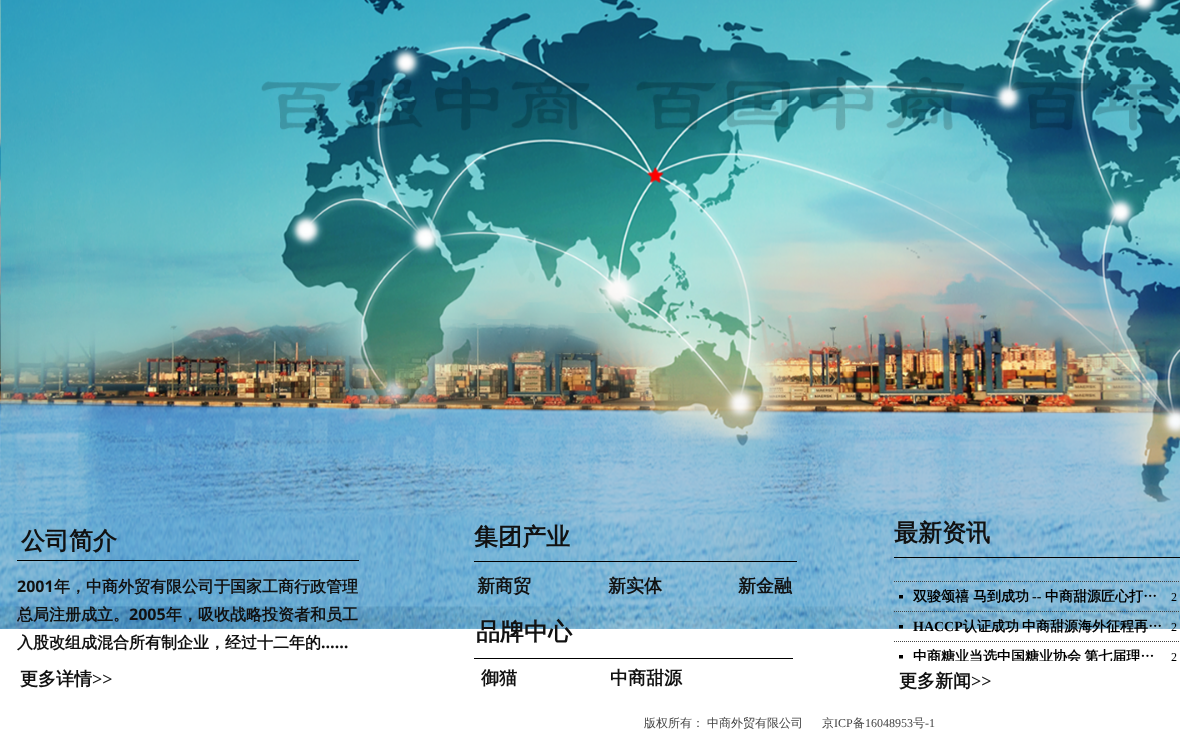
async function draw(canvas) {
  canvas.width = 1180;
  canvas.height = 741;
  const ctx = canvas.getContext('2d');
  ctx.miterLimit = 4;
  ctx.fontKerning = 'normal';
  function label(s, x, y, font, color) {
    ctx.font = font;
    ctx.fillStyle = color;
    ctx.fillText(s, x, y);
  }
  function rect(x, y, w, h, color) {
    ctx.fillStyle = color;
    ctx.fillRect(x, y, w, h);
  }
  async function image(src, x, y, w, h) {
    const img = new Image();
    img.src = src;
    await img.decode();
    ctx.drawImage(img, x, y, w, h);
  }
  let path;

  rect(0, 0, 1180, 741, '#fff');
  await image('assets/img1.png', 0, 0, 1180, 629);
  label('公司简介', 21, 549, 'bold 24px WenQuanYi Zen Hei', '#111');
  label('集团产业', 474, 545, 'bold 24px WenQuanYi Zen Hei', '#111');
  rect(474, 561, 323, 1, '#000');
  label('新商贸', 477, 592, 'bold 18px WenQuanYi Zen Hei', '#111');
  label('新实体', 608, 592, 'bold 18px WenQuanYi Zen Hei', '#111');
  label('新金融', 738, 592, 'bold 18px WenQuanYi Zen Hei', '#111');
  label('品牌中心', 476, 640, 'bold 24px WenQuanYi Zen Hei', '#111');
  rect(474, 658, 319, 1, '#000');
  label('御猫', 481, 684, 'bold 18px WenQuanYi Zen Hei', '#111');
  label('中商甜源', 610, 684, 'bold 18px WenQuanYi Zen Hei', '#111');
  label('最新资讯', 894, 541, 'bold 24px WenQuanYi Zen Hei', '#111');
  rect(894, 557, 286, 1, '#000');
  path = new Path2D('M894 581.5H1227');
  ctx.strokeStyle = '#444';
  ctx.setLineDash([1, 1]);
  ctx.stroke(path);
  path = new Path2D('M894 611.5H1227');
  ctx.stroke(path);
  path = new Path2D('M899 595H903V598.5H899Z');
  ctx.fill(path);
  label('双骏颂禧', 913, 601, 'bold 14px WenQuanYi Zen Hei', '#000');
  label('马到成功', 973, 601, 'bold 14px WenQuanYi Zen Hei', '#000');
  label('--', 1032, 601, 'bold 14px Liberation Serif', '#000');
  label('中商甜源匠心打…', 1045, 601, 'bold 14px WenQuanYi Zen Hei', '#000');
  label('2', 1171, 601, '12px Liberation Serif', '#000');
  path = new Path2D('M894 641.5H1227');
  ctx.stroke(path);
  path = new Path2D('M899 625H903V628.5H899Z');
  ctx.fill(path);
  label('HACCP', 913, 631, 'bold 14px Liberation Serif', '#000');
  label('认证成功', 963, 631, 'bold 14px WenQuanYi Zen Hei', '#000');
  label('中商甜源海外征程再…', 1022, 631, 'bold 14px WenQuanYi Zen Hei', '#000');
  label('2', 1171, 631, '12px Liberation Serif', '#000');
  path = new Path2D('M899 655H903V658.5H899Z');
  ctx.fill(path);
  ctx.save();
  ctx.beginPath();
  ctx.rect(908, 643, 255, 18);
  ctx.clip();
  ctx.wordSpacing = '-1px';
  label('中商糖业当选中国糖业协会 第七届理…', 913, 661, 'bold 14px WenQuanYi Zen Hei', '#000');
  ctx.restore();
  label('2', 1171, 661, '12px Liberation Serif', '#000');
  label('更多新闻', 899, 687, 'bold 18px WenQuanYi Zen Hei', '#111');
  label('>>', 971, 687, 'bold 18px Liberation Serif', '#111');
  rect(17, 560, 342, 1, '#000');
  label('2001', 17, 592, 'bold 16px Noto Sans', '#111');
  label('年，中商外贸有限公司于国家工商行政管理', 54, 592, 'bold 16px WenQuanYi Zen Hei', '#111');
  label('总局注册成立。', 17, 620, 'bold 16px WenQuanYi Zen Hei', '#111');
  label('2005', 129, 620, 'bold 16px Noto Sans', '#111');
  label('年，吸收战略投资者和员工', 166, 620, 'bold 16px WenQuanYi Zen Hei', '#111');
  label('入股改组成混合所有制企业，经过十二年的', 17, 648, 'bold 16px WenQuanYi Zen Hei', '#111');
  label('……', 321, 648, 'bold 16px Noto Sans', '#111');
  label('更多详情', 20, 685, 'bold 18px WenQuanYi Zen Hei', '#111');
  label('>>', 92, 685, 'bold 18px Liberation Serif', '#111');
  label('版权所有：', 644, 727, '500 12px WenQuanYi Zen Hei', '#444');
  label('中商外贸有限公司', 707, 727, '500 12px WenQuanYi Zen Hei', '#444');
  label('京', 822, 727, '500 12px WenQuanYi Zen Hei', '#444');
  label('ICP', 834, 727, '12px Liberation Serif', '#444');
  label('备', 853, 727, '500 12px WenQuanYi Zen Hei', '#444');
  label('16048953', 865, 727, '12px Liberation Serif', '#444');
  label('号', 913, 727, '500 12px WenQuanYi Zen Hei', '#444');
  label('-1', 925, 727, '12px Liberation Serif', '#444');
}

draw(document.querySelector('canvas'));
